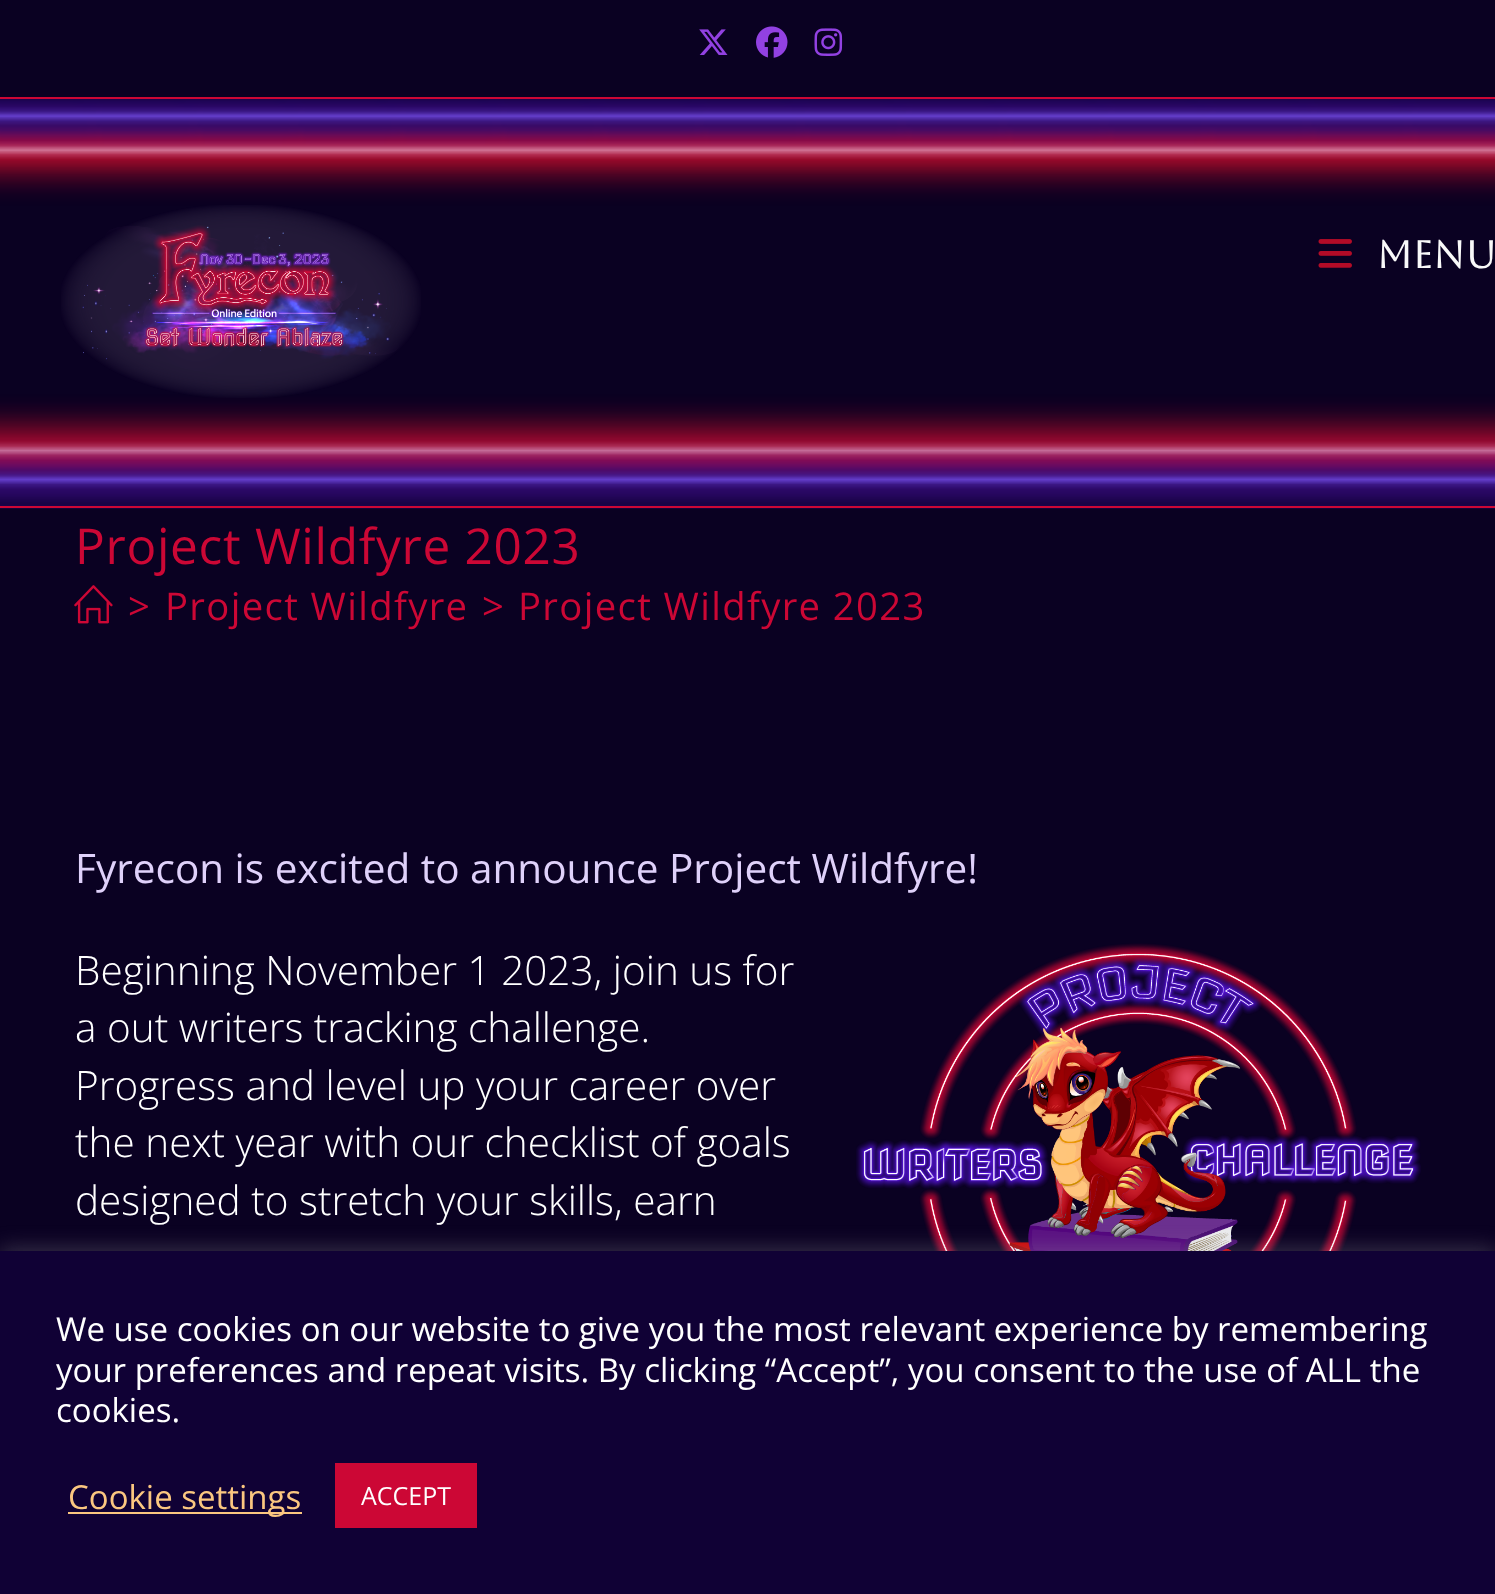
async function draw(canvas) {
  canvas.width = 1495;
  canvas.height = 1594;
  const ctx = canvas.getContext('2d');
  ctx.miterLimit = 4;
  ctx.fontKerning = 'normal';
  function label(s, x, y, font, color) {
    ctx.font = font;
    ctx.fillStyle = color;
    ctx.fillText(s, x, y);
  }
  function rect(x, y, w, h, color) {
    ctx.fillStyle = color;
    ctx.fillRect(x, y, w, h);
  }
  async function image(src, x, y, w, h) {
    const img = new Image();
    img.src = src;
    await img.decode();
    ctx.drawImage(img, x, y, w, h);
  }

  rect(0, 0, 1495, 1594, '#0a0122');
  rect(0, 97, 1495, 2, '#cc0735');
  await image('assets/img1.png', 699, 29, 29, 26);
  await image('assets/img2.png', 756, 26, 32, 32);
  await image('assets/img3.png', 814, 28, 29, 28);
  await image('assets/img4.png', 0, 99, 1495, 410);
  rect(0, 506, 1495, 2, '#cc0735');
  await image('assets/img5.png', 61, 205, 360, 193);
  await image('assets/img6.png', 1318, 239, 34, 29);
  ctx.letterSpacing = '0.7px';
  label('Menu', 1377, 268, 'bold 38.25px Aboreto', '#f9f9f9');
  label('Project Wildfyre 2023', 75, 564, '49.5px Open Sans', '#cc0735');
  await image('assets/img7.png', 74, 585, 39, 39);
  ctx.letterSpacing = '1.35px';
  label('>', 128, 620, '38.25px Open Sans', '#cc0735');
  label('Project Wildfyre', 165, 620, '38.25px Open Sans', '#cc0735');
  label('>', 482, 620, '38.25px Open Sans', '#cc0735');
  label('Project Wildfyre 2023', 518, 620, '38.25px Open Sans', '#cc0735');
  ctx.letterSpacing = '0px';
  label('Fyrecon is excited to announce Project Wildfyre!', 75, 883, '40.5px Open Sans', '#dfd1fa');
  label('Beginning November 1 2023, join us for', 75, 985, '300 40.5px Open Sans', '#fff');
  label('a out writers tracking challenge.', 75, 1042, '300 40.5px Open Sans', '#fff');
  label('Progress and level up your career over', 75, 1100, '300 40.5px Open Sans', '#fff');
  label('the next year with our checklist of goals', 75, 1157, '300 40.5px Open Sans', '#fff');
  label('designed to stretch your skills, earn', 75, 1215, '300 40.5px Open Sans', '#fff');
  await image('assets/img8.png', 856, 943, 565, 308);
  ctx.fillStyle = '#acabab4d';
  ctx.filter = 'blur(11px)';
  ctx.beginPath();
  ctx.rect(0, 1249, 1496, 344);
  ctx.fill();
  ctx.filter = 'none';
  rect(0, 1251, 1495, 343, '#100135');
  label('We use cookies on our website to give you the most relevant experience by remembering', 56, 1341, '33px Open Sans', '#fff');
  label('your preferences and repeat visits. By clicking “Accept”, you consent to the use of ALL the', 56, 1382, '33px Open Sans', '#fff');
  label('cookies.', 56, 1422, '33px Open Sans', '#fff');
  rect(68, 1512, 234, 2, '#fbc780');
  label('Cookie settings', 68, 1509, '33px Open Sans', '#fbc780');
  rect(335, 1463, 142, 65, '#cc0735');
  label('ACCEPT', 361, 1505, '25px Open Sans', '#fff');
}

draw(document.querySelector('canvas'));
